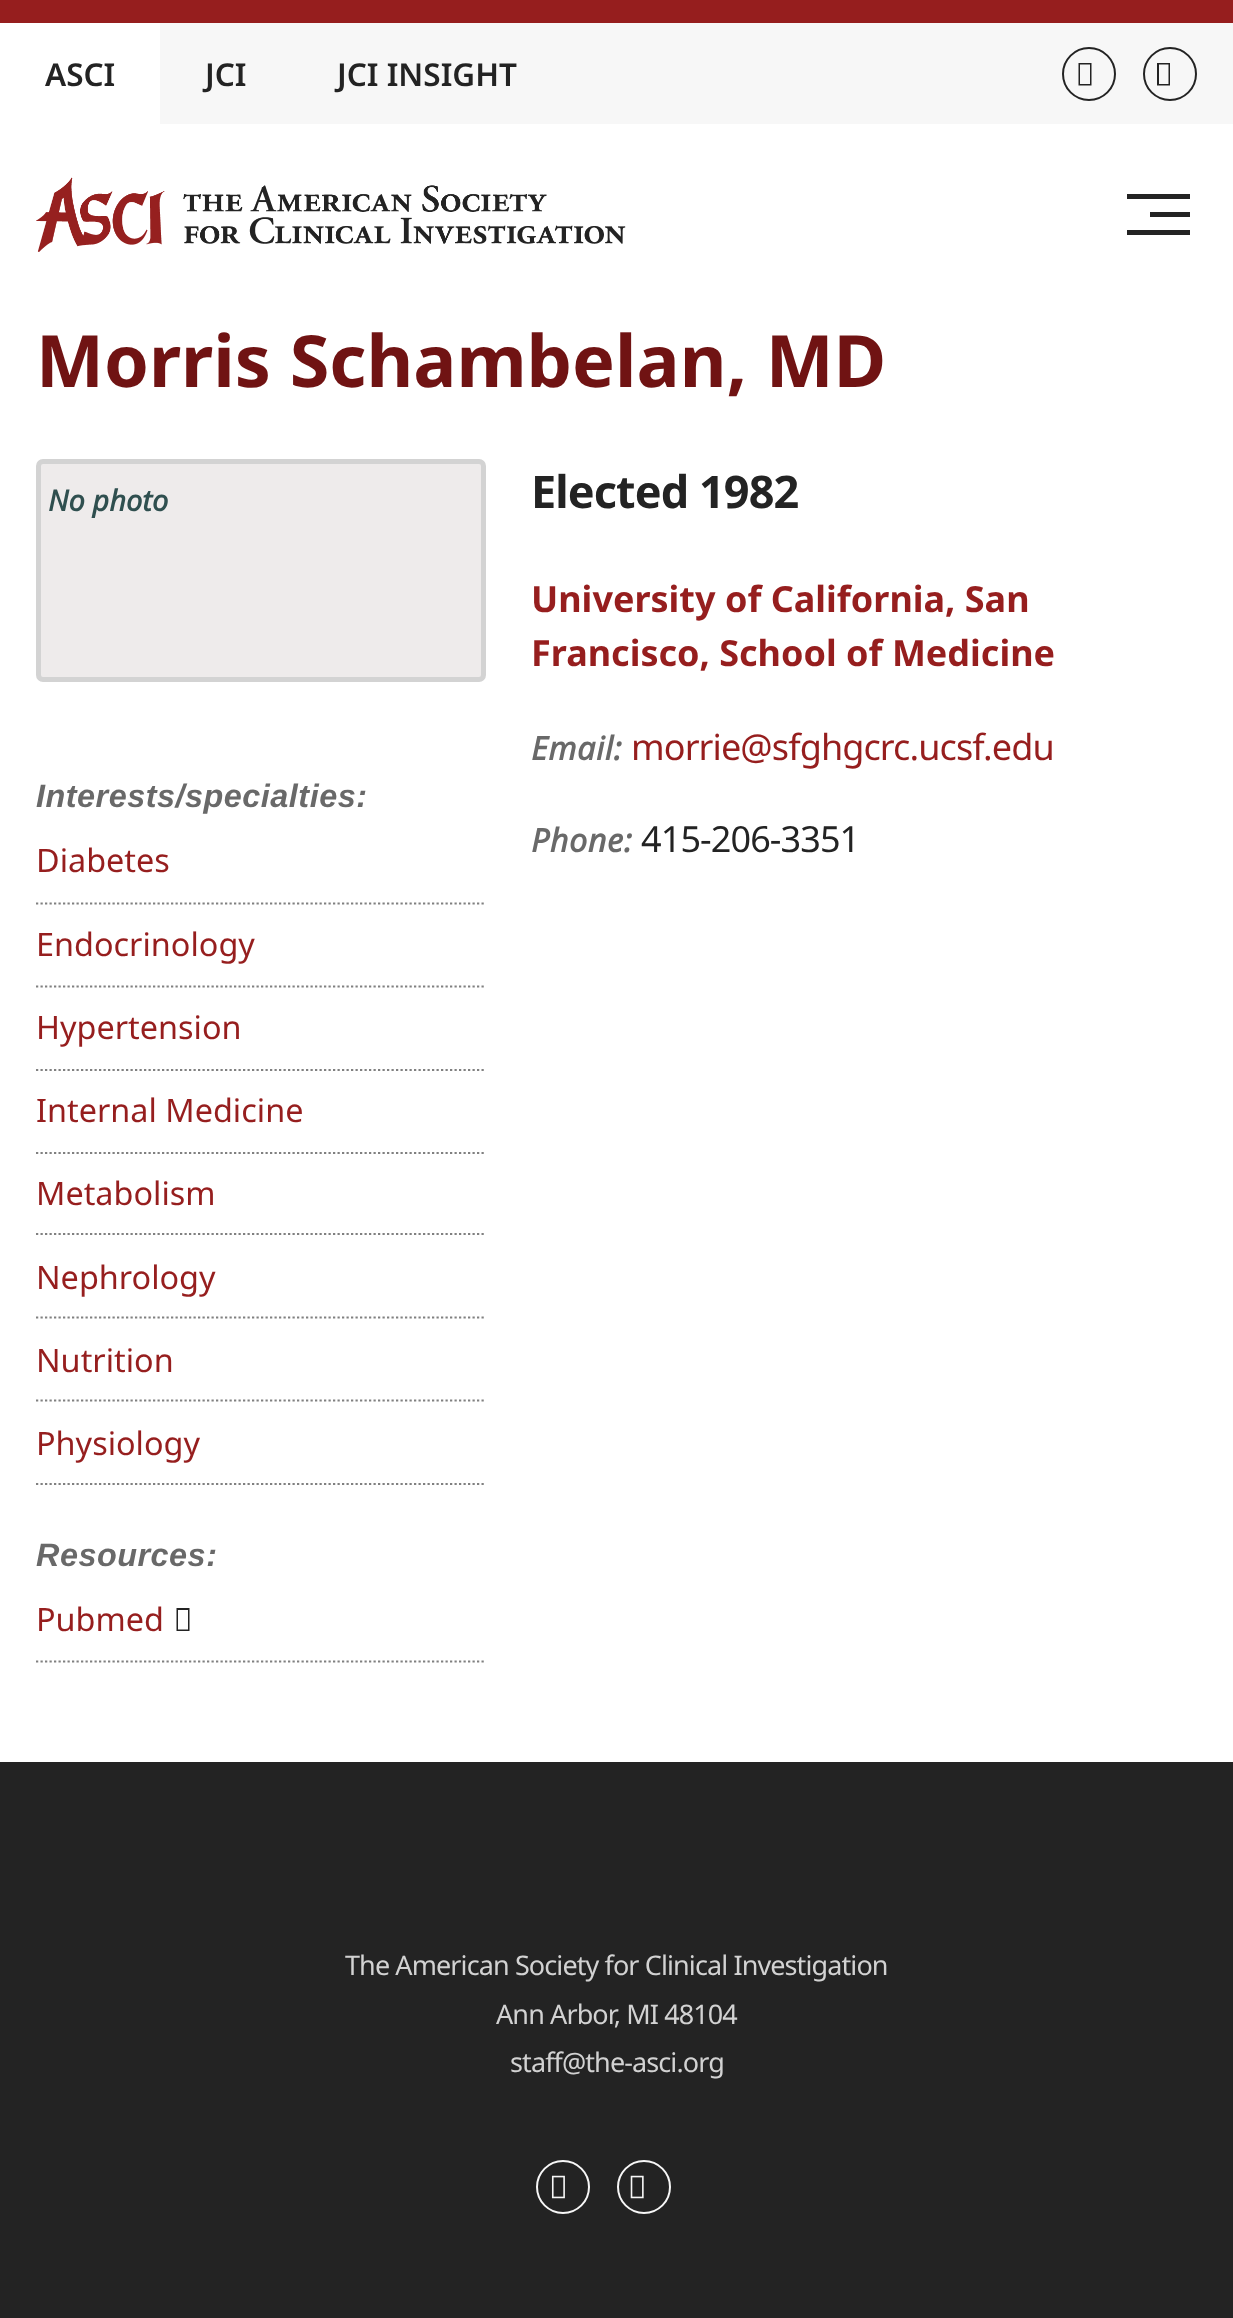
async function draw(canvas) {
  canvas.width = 1233;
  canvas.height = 2318;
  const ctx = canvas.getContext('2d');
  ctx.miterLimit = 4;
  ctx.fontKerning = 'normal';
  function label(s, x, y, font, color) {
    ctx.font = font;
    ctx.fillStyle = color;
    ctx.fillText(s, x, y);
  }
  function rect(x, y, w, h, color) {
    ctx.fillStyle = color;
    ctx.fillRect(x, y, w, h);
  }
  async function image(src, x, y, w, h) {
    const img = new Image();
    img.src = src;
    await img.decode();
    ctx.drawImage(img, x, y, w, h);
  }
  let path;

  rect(0, 0, 1233, 2318, '#fff');
  rect(0, 0, 1233, 23, '#961e1e');
  rect(160, 23, 1073, 101, '#f7f7f7');
  label('ASCI', 45, 86, '600 31.5px Noto Sans', '#232323');
  label('JCI', 205, 86, '600 31.5px Noto Sans', '#232323');
  label('JCI INSIGHT', 337, 86, '600 31.5px Noto Sans', '#232323');
  ctx.beginPath();
  ctx.arc(1089, 74, 26, 0, 2 * Math.PI);
  ctx.strokeStyle = '#232323';
  ctx.lineWidth = 2;
  ctx.stroke();
  path = new Path2D('M1078.5 85.5V63H1091.5V85.5ZM1080 84H1090V64.5H1080Z');
  ctx.fill(path);
  ctx.beginPath();
  ctx.arc(1170, 74, 26, 0, 2 * Math.PI);
  ctx.stroke();
  path = new Path2D('M1157 85.5V63H1170V85.5ZM1159 84H1168.5V64.5H1159Z');
  ctx.fill(path);
  await image('assets/img1.png', 36, 177, 590, 75);
  rect(1127, 194, 63, 5, '#232323');
  rect(1150, 212, 40, 5, '#232323');
  rect(1127, 230, 63, 5, '#232323');
  label('Morris Schambelan, MD', 36, 387, 'bold 72px Noto Sans', '#701313');
  ctx.fillStyle = '#eeebeb';
  ctx.beginPath();
  ctx.roundRect(38.5, 461.5, 445, 218, 4.5);
  ctx.fill();
  ctx.strokeStyle = '#d3d3d3';
  ctx.lineWidth = 5;
  ctx.stroke();
  label('No photo', 48, 511, 'italic bold 29px Noto Sans', '#2f4f4f');
  ctx.letterSpacing = '-0.9px';
  label('Elected 1982', 531, 508, 'bold 45px Noto Sans', '#232323');
  ctx.letterSpacing = '0px';
  label('University of California, San', 531, 612, 'bold 36px Noto Sans', '#961e1e');
  label('Francisco, School of Medicine', 531, 666, 'bold 36px Noto Sans', '#961e1e');
  ctx.letterSpacing = '0.5px';
  label('Email:', 531, 760, 'italic bold 32.4px Noto Sans', '#696969');
  ctx.letterSpacing = '-0.9px';
  label('morrie@sfghgcrc.ucsf.edu', 631, 760, '36px Noto Sans', '#961e1e');
  ctx.letterSpacing = '0.5px';
  label('Phone:', 531, 852, 'italic bold 32.4px Noto Sans', '#696969');
  ctx.letterSpacing = '-0.9px';
  label('415-206-3351', 641, 852, '36px Noto Sans', '#232323');
  ctx.letterSpacing = '0.5px';
  label('Interests/specialties:', 36, 807, 'italic bold 32.4px Liberation Sans', '#696969');
  path = new Path2D('M36 903.5H486');
  ctx.strokeStyle = '#808080';
  ctx.lineWidth = 2.2;
  ctx.setLineDash([2.25, 2.25]);
  ctx.stroke(path);
  ctx.letterSpacing = '0px';
  label('Diabetes', 36, 872, '32.4px Noto Sans', '#961e1e');
  path = new Path2D('M36 986.5H486');
  ctx.stroke(path);
  label('Endocrinology', 36, 956, '32.4px Noto Sans', '#961e1e');
  path = new Path2D('M36 1070H486');
  ctx.stroke(path);
  label('Hypertension', 36, 1039, '32.4px Noto Sans', '#961e1e');
  path = new Path2D('M36 1153H486');
  ctx.stroke(path);
  label('Internal Medicine', 36, 1122, '32.4px Noto Sans', '#961e1e');
  path = new Path2D('M36 1234H486');
  ctx.stroke(path);
  label('Metabolism', 36, 1205, '32.4px Noto Sans', '#961e1e');
  path = new Path2D('M36 1317.5H486');
  ctx.stroke(path);
  label('Nephrology', 36, 1289, '32.4px Noto Sans', '#961e1e');
  path = new Path2D('M36 1400.5H486');
  ctx.stroke(path);
  label('Nutrition', 36, 1372, '32.4px Noto Sans', '#961e1e');
  path = new Path2D('M36 1484H486');
  ctx.stroke(path);
  label('Physiology', 36, 1455, '32.4px Noto Sans', '#961e1e');
  ctx.letterSpacing = '0.5px';
  label('Resources:', 36, 1566, 'italic bold 32.4px Liberation Sans', '#696969');
  path = new Path2D('M36 1661.5H486');
  ctx.stroke(path);
  ctx.letterSpacing = '0px';
  label('Pubmed', 36, 1631, '32.4px Noto Sans', '#961e1e');
  ctx.fillStyle = '#232323';
  path = new Path2D('M176.5 1631V1608H189.5V1631ZM178 1629.5H188V1610H178Z');
  ctx.fill(path);
  rect(0, 1762, 1233, 556, '#232323');
  ctx.letterSpacing = '-0.9px';
  label('The American Society for Clinical Investigation', 345, 1975, '27px Noto Sans', '#d2d2d2');
  label('Ann Arbor, MI 48104', 496, 2024, '27px Noto Sans', '#d2d2d2');
  label('staff@the-asci.org', 510, 2072, '27px Noto Sans', '#d2d2d2');
  ctx.beginPath();
  ctx.arc(563, 2187, 26, 0, 2 * Math.PI);
  ctx.strokeStyle = '#f7f7f7';
  ctx.lineWidth = 2;
  ctx.setLineDash([]);
  ctx.stroke();
  await image('assets/img2.png', 551, 2175, 14, 24);
  ctx.beginPath();
  ctx.arc(644, 2187, 26, 0, 2 * Math.PI);
  ctx.stroke();
  await image('assets/img3.png', 630, 2175, 14, 24);
}

draw(document.querySelector('canvas'));
